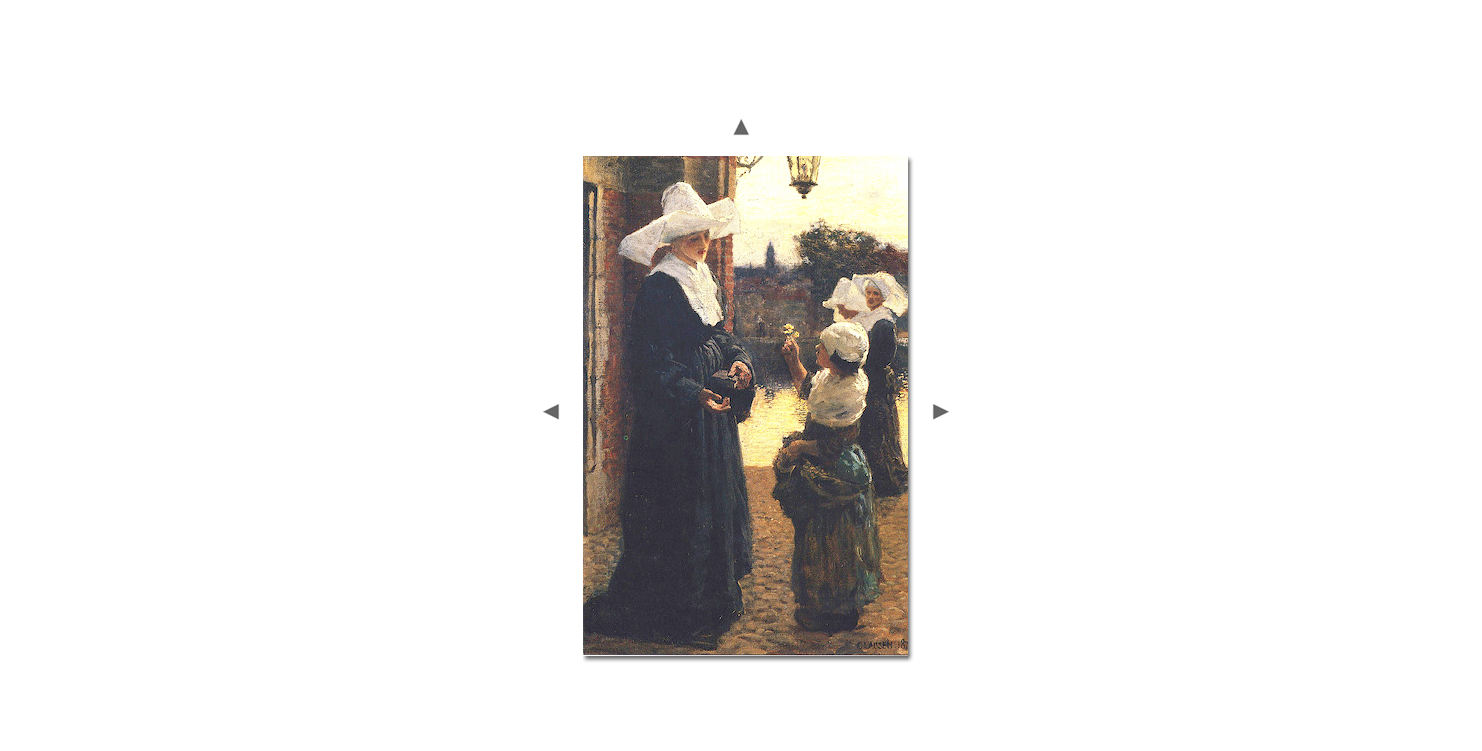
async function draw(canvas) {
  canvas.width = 1482;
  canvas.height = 751;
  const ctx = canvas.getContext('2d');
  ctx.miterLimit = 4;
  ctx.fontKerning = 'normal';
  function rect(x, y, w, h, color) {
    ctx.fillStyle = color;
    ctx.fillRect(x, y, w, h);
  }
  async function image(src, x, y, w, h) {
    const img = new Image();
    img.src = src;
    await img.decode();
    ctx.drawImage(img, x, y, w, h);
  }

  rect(0, 0, 1482, 751, '#fff');
  await image('assets/img1.png', 733, 118, 16, 18);
  await image('assets/img2.png', 542, 404, 18, 16);
  await image('assets/img3.png', 583, 156, 325, 500);
  await image('assets/img4.png', 908, 163, 6, 493);
  await image('assets/img5.png', 908, 156, 6, 7);
  await image('assets/img6.png', 589, 656, 319, 7);
  await image('assets/img7.png', 583, 656, 6, 7);
  await image('assets/img8.png', 908, 656, 6, 7);
  await image('assets/img9.png', 932, 404, 18, 16);
}

draw(document.querySelector('canvas'));
